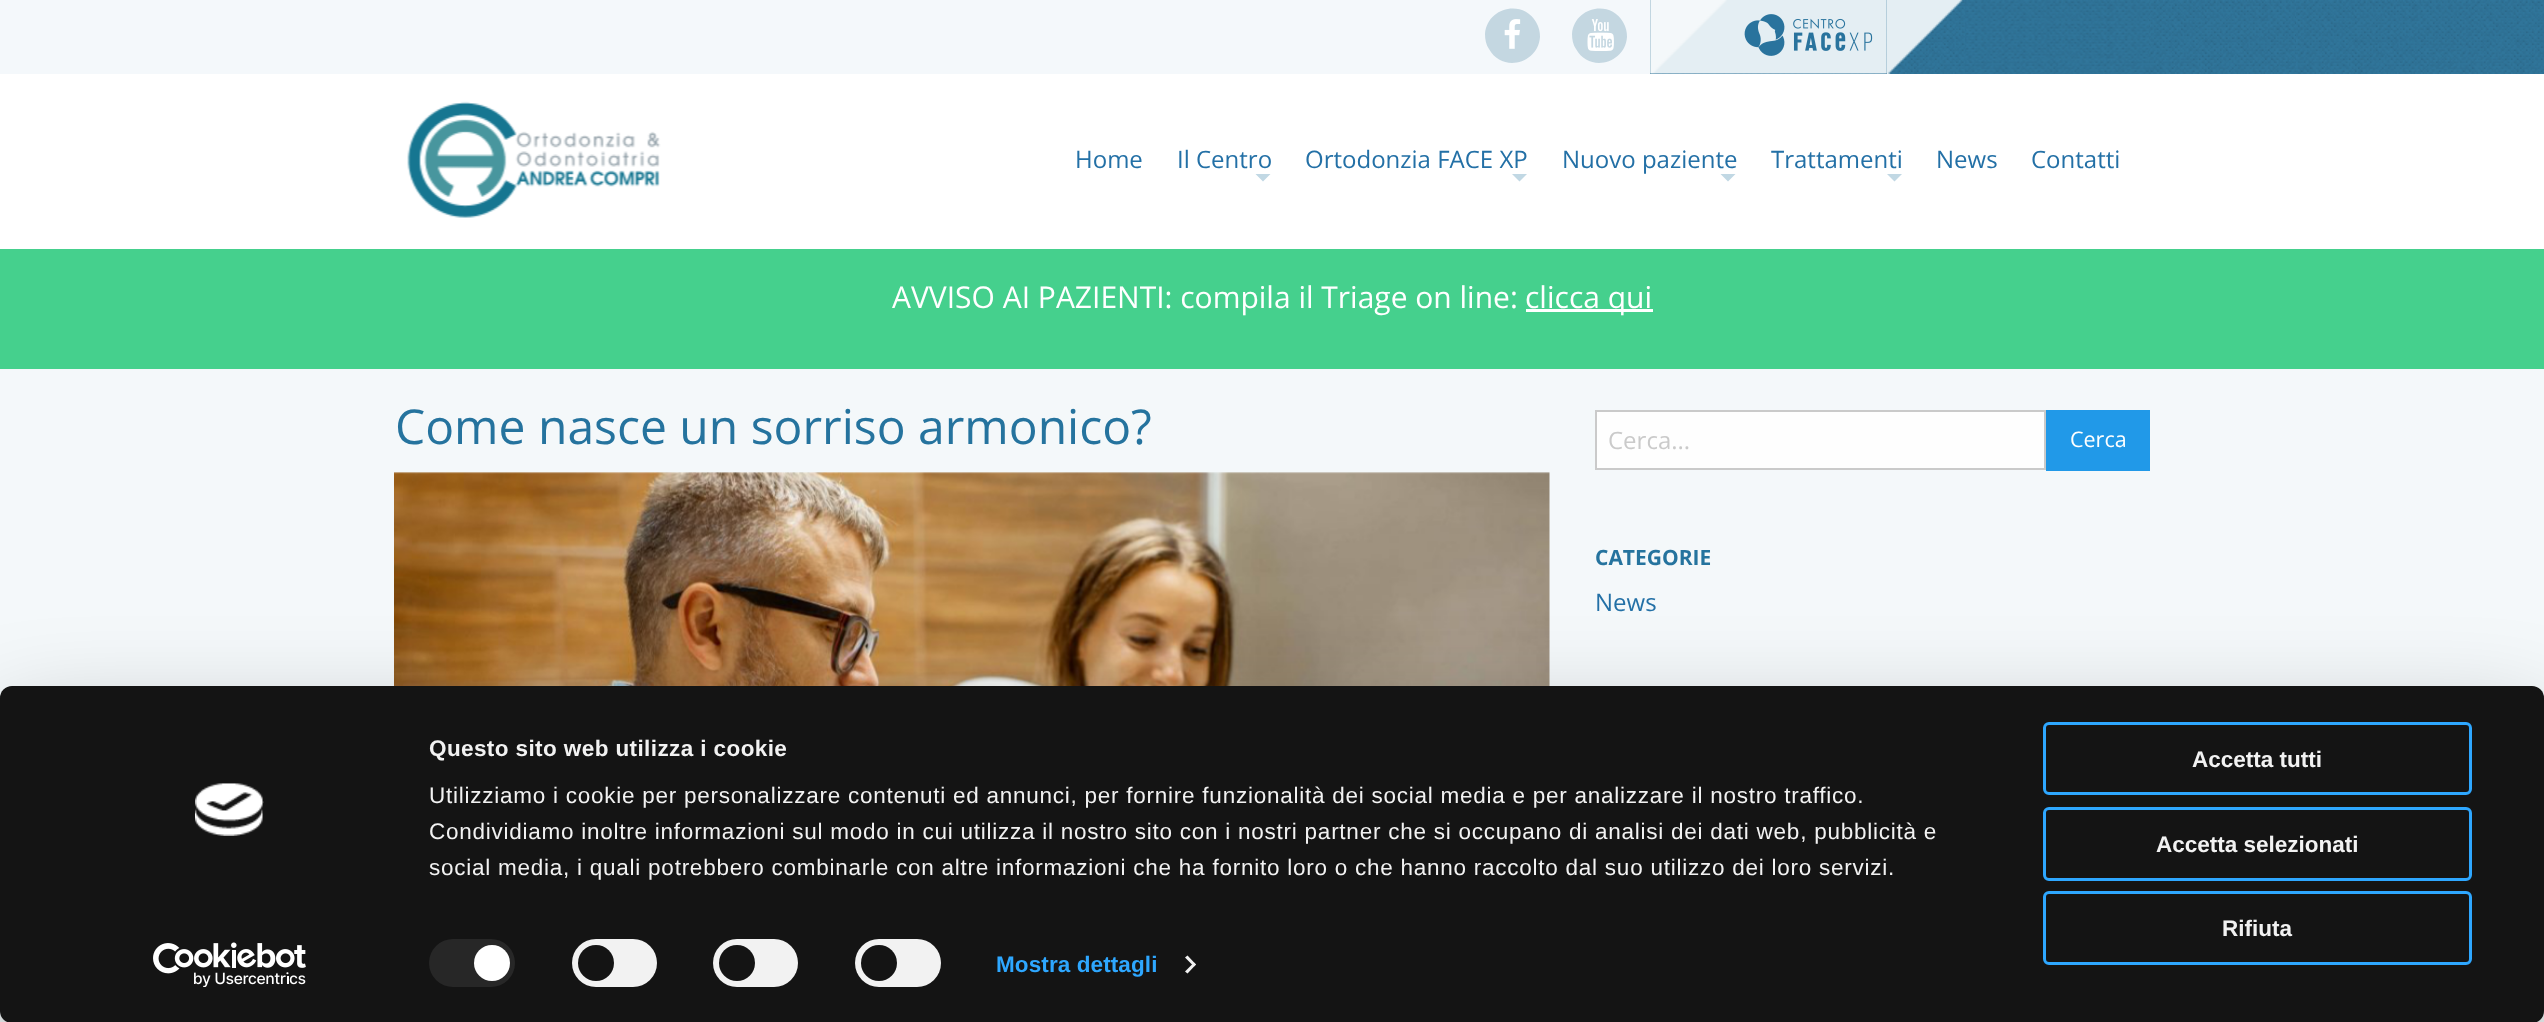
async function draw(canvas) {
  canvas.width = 2544;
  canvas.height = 1022;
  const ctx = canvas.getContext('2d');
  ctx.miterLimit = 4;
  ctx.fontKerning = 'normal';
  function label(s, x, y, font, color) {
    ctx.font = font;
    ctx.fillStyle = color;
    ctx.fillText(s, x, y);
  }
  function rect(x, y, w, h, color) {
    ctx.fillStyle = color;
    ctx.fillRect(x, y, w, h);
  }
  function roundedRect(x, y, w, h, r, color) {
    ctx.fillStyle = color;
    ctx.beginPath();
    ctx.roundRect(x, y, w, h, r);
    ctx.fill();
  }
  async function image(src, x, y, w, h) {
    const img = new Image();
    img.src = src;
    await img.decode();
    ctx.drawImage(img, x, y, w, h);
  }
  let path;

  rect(0, 0, 2544, 1022, '#fff');
  await image('assets/img1.png', 0, 0, 2544, 74);
  rect(1616, 0, 34, 74, '#f4f8fb');
  ctx.fillStyle = '#c4d7e1';
  path = new Path2D('M1536 22C1539 27 1540 32 1540 37C1538 64 1502 73 1489 49C1486 45 1485 39 1485 34C1487 7 1523-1 1536 22Z');
  ctx.fill(path);
  await image('assets/img2.png', 1504, 19, 17, 30);
  path = new Path2D('M1623 22C1626 27 1627 32 1627 37C1625 64 1589 73 1576 49C1573 45 1572 39 1572 34C1574 7 1610-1 1623 22Z');
  ctx.fill(path);
  await image('assets/img3.png', 1587, 19, 27, 32);
  await image('assets/img4.png', 1650, 0, 237, 74);
  await image('assets/img5.png', 1744, 14, 129, 42);
  await image('assets/img6.png', 1887, 0, 262, 74);
  await image('assets/img7.png', 1965, 0, 184, 74);
  await image('assets/img8.png', 407, 101, 254, 117);
  label('Home', 1075, 168, '24px Open Sans', '#2370a6');
  label('Il Centro', 1177, 168, '24px Open Sans', '#2370a6');
  ctx.fillStyle = '#c1d8e4';
  path = new Path2D('M1255.5 174H1270.5L1263 181.5Z');
  ctx.fill(path);
  label('Ortodonzia FACE XP', 1305, 168, '24px Open Sans', '#2370a6');
  ctx.fillStyle = '#c1d8e4';
  path = new Path2D('M1512 174H1527L1519.5 181.5Z');
  ctx.fill(path);
  label('Nuovo paziente', 1562, 168, '24px Open Sans', '#2370a6');
  ctx.fillStyle = '#c1d8e4';
  path = new Path2D('M1720.5 174H1735.5L1728 181.5Z');
  ctx.fill(path);
  label('Trattamenti', 1771, 168, '24px Open Sans', '#2370a6');
  ctx.fillStyle = '#c1d8e4';
  path = new Path2D('M1887 174H1902L1894.5 181.5Z');
  ctx.fill(path);
  label('News', 1936, 168, '24px Open Sans', '#2370a6');
  label('Contatti', 2031, 168, '24px Open Sans', '#2370a6');
  rect(0, 249, 2544, 120, '#45d08d');
  label('AVVISO AI PAZIENTI: compila il Triage on line:', 892, 308, '30px Open Sans', '#fff');
  rect(1526, 309, 127, 3, '#fff');
  label('clicca qui', 1525, 308, '30px Open Sans', '#fff');
  rect(0, 369, 2544, 653, '#f4f8fa');
  label('Come nasce un sorriso armonico?', 395, 444, '48px Open Sans', '#25739e');
  await image('assets/img9.png', 394, 472, 1156, 214);
  ctx.fillStyle = '#fefefe';
  ctx.beginPath();
  ctx.rect(1596, 411, 449, 58);
  ctx.fill();
  ctx.strokeStyle = '#cacaca';
  ctx.lineWidth = 2;
  ctx.stroke();
  label('Cerca...', 1608, 449, '24px Open Sans', '#cacaca');
  rect(2046, 410, 104, 61, '#2199e8');
  label('Cerca', 2070, 447, '21.5px Open Sans', '#fff');
  label('CATEGORIE', 1595, 565, 'bold 21px Open Sans', '#25739e');
  label('News', 1595, 611, '24px Open Sans', '#2370a6');
  ctx.fillStyle = '#0000004d';
  ctx.filter = 'blur(52.5px)';
  ctx.beginPath();
  ctx.roundRect(0, 731, 2544, 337, 12);
  ctx.fill();
  ctx.filter = 'none';
  roundedRect(0, 686, 2544, 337, 12, '#141414');
  await image('assets/img10.png', 195, 783, 69, 53);
  await image('assets/img11.png', 153, 942, 153, 45);
  ctx.letterSpacing = '0.4px';
  label('Questo sito web utilizza i cookie', 429, 756, 'bold 22.5px Liberation Sans', '#f2f2f2');
  ctx.letterSpacing = '0.75px';
  label('Utilizziamo i cookie per personalizzare contenuti ed annunci, per fornire funzionalità dei social media e per analizzare il nostro traffico.', 429, 803, '22.5px Liberation Sans', '#f2f2f2');
  label('Condividiamo inoltre informazioni sul modo in cui utilizza il nostro sito con i nostri partner che si occupano di analisi dei dati web, pubblicità e', 429, 839, '22.5px Liberation Sans', '#f2f2f2');
  label('social media, i quali potrebbero combinarle con altre informazioni che ha fornito loro o che hanno raccolto dal suo utilizzo dei loro servizi.', 429, 875, '22.5px Liberation Sans', '#f2f2f2');
  roundedRect(429, 939, 86, 48, 24, '#272727');
  ctx.fillStyle = '#fff';
  ctx.beginPath();
  ctx.arc(492, 963, 18, 0, 2 * Math.PI);
  ctx.fill();
  roundedRect(572, 939, 85, 48, 24, '#f2f2f2');
  ctx.fillStyle = '#141414';
  ctx.beginPath();
  ctx.arc(596, 963, 18, 0, 2 * Math.PI);
  ctx.fill();
  roundedRect(713, 939, 85, 48, 24, '#f2f2f2');
  ctx.fillStyle = '#141414';
  ctx.beginPath();
  ctx.arc(737, 963, 18, 0, 2 * Math.PI);
  ctx.fill();
  roundedRect(855, 939, 86, 48, 24, '#f2f2f2');
  ctx.fillStyle = '#141414';
  ctx.beginPath();
  ctx.arc(879, 963, 18, 0, 2 * Math.PI);
  ctx.fill();
  ctx.letterSpacing = '0.1px';
  label('Mostra dettagli', 996, 972, 'bold 22.5px Liberation Sans', '#2ea7ff');
  ctx.fillStyle = '#f2f2f2';
  path = new Path2D('M1187.5 955.5L1196 964.5L1194 966.5L1185 957.5Z');
  ctx.fill(path);
  path = new Path2D('M1194 962.5L1196 964.5L1187.5 973.5L1185 971.5Z');
  ctx.fill(path);
  ctx.beginPath();
  ctx.roundRect(2044.5, 723.5, 426, 70, 4.5);
  ctx.strokeStyle = '#2ea7ff';
  ctx.lineWidth = 3;
  ctx.stroke();
  ctx.letterSpacing = '0px';
  label('Accetta tutti', 2192, 767, 'bold 22.5px Liberation Sans', '#f2f2f2');
  ctx.beginPath();
  ctx.roundRect(2044.5, 808.5, 426, 71, 4.5);
  ctx.stroke();
  label('Accetta selezionati', 2156, 852, 'bold 22.5px Liberation Sans', '#f2f2f2');
  ctx.beginPath();
  ctx.roundRect(2044.5, 892.5, 426, 71, 4.5);
  ctx.stroke();
  label('Rifiuta', 2222, 936, 'bold 22.5px Liberation Sans', '#f2f2f2');
}

draw(document.querySelector('canvas'));
